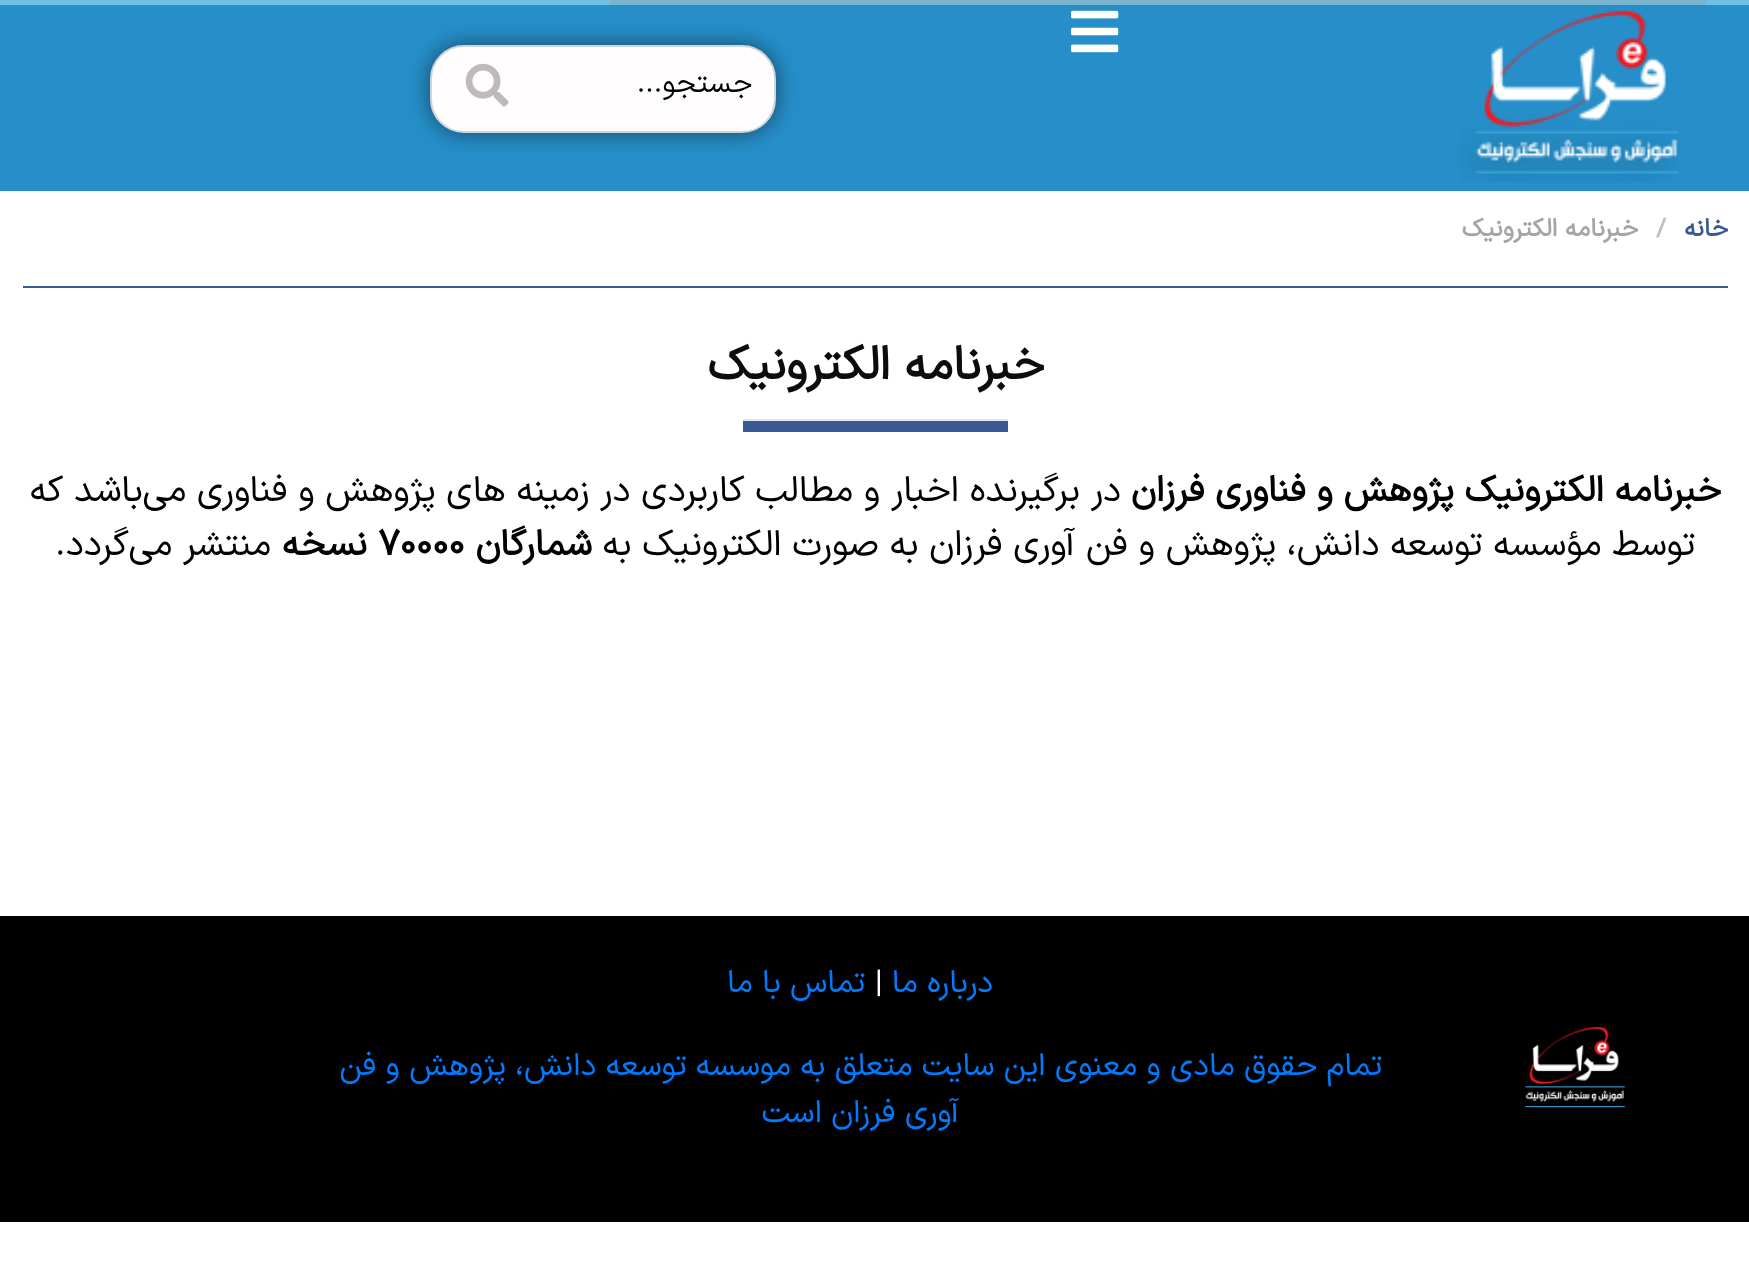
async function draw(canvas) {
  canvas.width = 1749;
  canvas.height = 1276;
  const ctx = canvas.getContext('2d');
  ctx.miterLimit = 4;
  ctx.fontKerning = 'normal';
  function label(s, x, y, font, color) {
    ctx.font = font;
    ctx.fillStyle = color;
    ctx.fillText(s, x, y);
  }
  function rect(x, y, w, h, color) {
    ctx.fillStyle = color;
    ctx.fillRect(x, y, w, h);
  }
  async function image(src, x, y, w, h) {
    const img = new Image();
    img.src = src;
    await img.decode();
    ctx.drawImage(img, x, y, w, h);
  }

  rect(0, 0, 1749, 1276, '#fff');
  rect(0, 0, 1749, 5, '#6ec1e4');
  rect(610, 0, 1096, 5, '#7ab4cd');
  rect(0, 5, 1749, 186, '#268fc9');
  await image('assets/img1.png', 1459, 10, 220, 172);
  await image('assets/img2.png', 1071, 10, 48, 43);
  ctx.fillStyle = '#00000080';
  ctx.filter = 'blur(11px)';
  ctx.beginPath();
  ctx.roundRect(430, 45, 346, 88, 34);
  ctx.fill();
  ctx.filter = 'none';
  ctx.fillStyle = '#fffdfd';
  ctx.beginPath();
  ctx.roundRect(431, 46, 344, 86, 33);
  ctx.fill();
  ctx.strokeStyle = '#ced4da';
  ctx.lineWidth = 2;
  ctx.stroke();
  ctx.direction = 'rtl';
  label('جستجو...', 752, 92, '29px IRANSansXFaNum', '#000');
  await image('assets/img3.png', 465, 63, 44, 44);
  label('خانه', 1728, 236, 'bold 24.75px IRANSansXFaNum', '#395995');
  ctx.direction = 'ltr';
  label('/', 1656, 236, 'bold 24.75px IRANSansXFaNum', '#bfbfbf');
  ctx.direction = 'rtl';
  label('خبرنامه الکترونیک', 1638, 236, 'bold 24.75px IRANSansXFaNum', '#a5a5a5');
  rect(23, 286, 1705, 2, '#395995');
  label('خبرنامه الکترونیک', 1044, 379, 'bold 47.25px IRANSansXFaNum', '#0c0c0c');
  rect(743, 419, 265, 2, '#e6e6e6');
  rect(743, 421, 265, 11, '#395995');
  label('خبرنامه الکترونیک پژوهش و فناوری فرزان', 1721, 501, 'bold 36px IRANSansXFaNum', '#000');
  label('در برگیرنده اخبار و مطالب کاربردی در زمینه‌ های پژوهش و فناوری می‌باشد که', 1121, 501, '36px IRANSansXFaNum', '#000');
  label('توسط مؤسسه توسعه دانش، پژوهش و فن آوری فرزان به صورت الکترونیک به', 1695, 555, '36px IRANSansXFaNum', '#000');
  label('شمارگان', 592, 555, 'bold 36px IRANSansXFaNum', '#000');
  ctx.direction = 'ltr';
  label('۷۰۰۰۰', 378, 555, 'bold 36px IRANSansXFaNum', '#000');
  ctx.direction = 'rtl';
  label('نسخه', 367, 555, 'bold 36px IRANSansXFaNum', '#000');
  label('منتشر می‌گردد.', 271, 555, '36px IRANSansXFaNum', '#000');
  rect(0, 916, 1749, 306, '#000');
  await image('assets/img4.png', 1525, 1027, 100, 81);
  label('درباره ما', 993, 992, '31.5px IRANSansXFaNum', '#007bff');
  ctx.direction = 'ltr';
  label('|', 875, 992, '31.5px IRANSansXFaNum', '#fff');
  ctx.direction = 'rtl';
  label('تماس با ما', 865, 992, '31.5px IRANSansXFaNum', '#007bff');
  label('تمام حقوق مادی و معنوی این سایت متعلق به موسسه توسعه دانش، پژوهش و فن', 1382, 1075, '31.5px IRANSansXFaNum', '#007bff');
  label('آوری فرزان است', 959, 1122, '31.5px IRANSansXFaNum', '#007bff');
}

draw(document.querySelector('canvas'));
